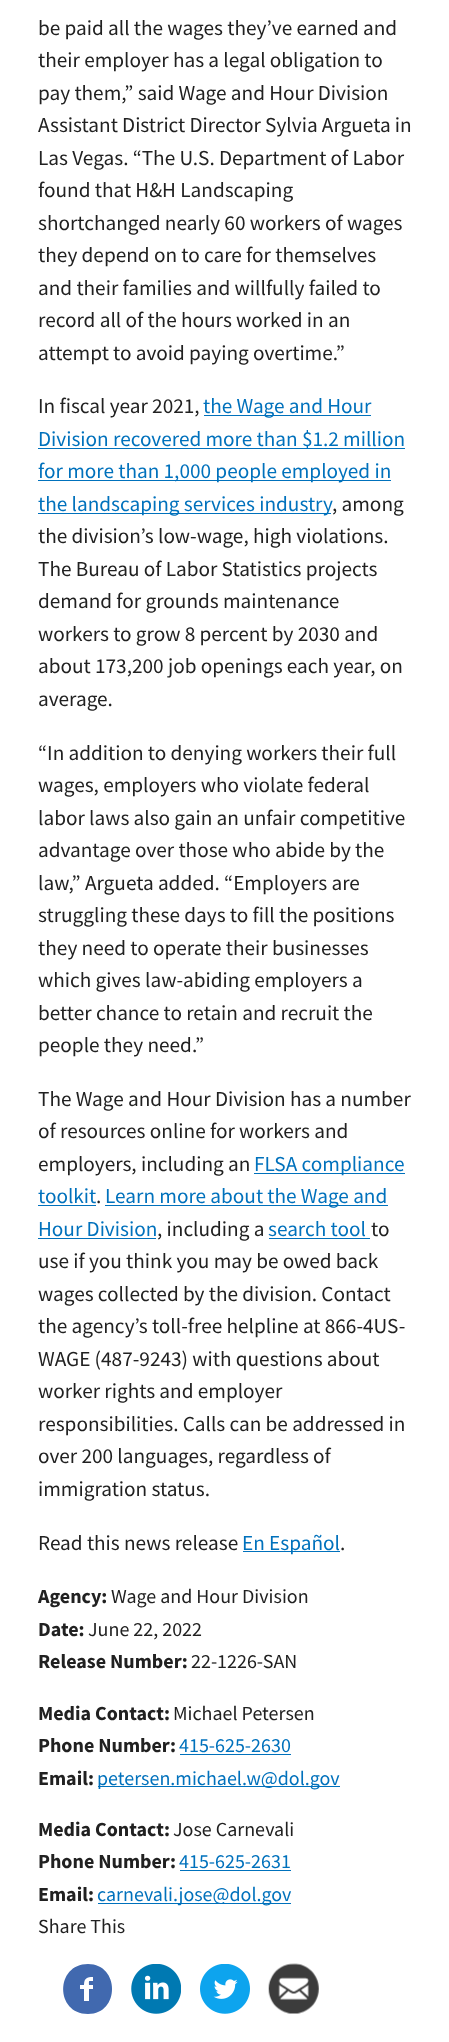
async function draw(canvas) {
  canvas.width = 449;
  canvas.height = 2042;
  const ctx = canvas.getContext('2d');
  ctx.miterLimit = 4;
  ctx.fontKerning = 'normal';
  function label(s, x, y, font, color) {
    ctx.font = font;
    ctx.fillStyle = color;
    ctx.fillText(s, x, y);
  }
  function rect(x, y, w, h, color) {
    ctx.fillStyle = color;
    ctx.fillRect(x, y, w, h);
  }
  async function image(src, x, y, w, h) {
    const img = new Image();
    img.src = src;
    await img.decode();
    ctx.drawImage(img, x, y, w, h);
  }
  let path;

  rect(0, 0, 449, 2042, '#fff');
  label('be paid all the wages they’ve earned and', 38, 35, '21.25px Source Sans Pro', '#212121');
  label('their employer has a legal obligation to', 38, 67, '21.25px Source Sans Pro', '#212121');
  label('pay them,” said Wage and Hour Division', 38, 100, '21.25px Source Sans Pro', '#212121');
  label('Assistant District Director Sylvia Argueta in', 38, 132, '21.25px Source Sans Pro', '#212121');
  label('Las Vegas. “The U.S. Department of Labor', 38, 165, '21.25px Source Sans Pro', '#212121');
  label('found that H&H Landscaping', 38, 197, '21.25px Source Sans Pro', '#212121');
  label('shortchanged nearly 60 workers of wages', 38, 230, '21.25px Source Sans Pro', '#212121');
  label('they depend on to care for themselves', 38, 262, '21.25px Source Sans Pro', '#212121');
  label('and their families and willfully failed to', 38, 295, '21.25px Source Sans Pro', '#212121');
  label('record all of the hours worked in an', 38, 327, '21.25px Source Sans Pro', '#212121');
  label('attempt to avoid paying overtime.”', 38, 360, '21.25px Source Sans Pro', '#212121');
  label('In fiscal year 2021,', 38, 413, '21.25px Source Sans Pro', '#212121');
  rect(204, 415, 167, 1, '#0071bc');
  label('the Wage and Hour', 203, 413, '21.25px Source Sans Pro', '#0071bc');
  rect(38, 448, 367, 1, '#0071bc');
  label('Division recovered more than $1.2 million', 38, 446, '21.25px Source Sans Pro', '#0071bc');
  rect(38, 480, 353, 1, '#0071bc');
  label('for more than 1,000 people employed in', 38, 478, '21.25px Source Sans Pro', '#0071bc');
  rect(38, 513, 293, 1, '#0071bc');
  label('the landscaping services industry', 38, 511, '21.25px Source Sans Pro', '#0071bc');
  label(', among', 332, 511, '21.25px Source Sans Pro', '#212121');
  label('the division’s low-wage, high violations.', 38, 543, '21.25px Source Sans Pro', '#212121');
  label('The Bureau of Labor Statistics projects', 38, 576, '21.25px Source Sans Pro', '#212121');
  label('demand for grounds maintenance', 38, 608, '21.25px Source Sans Pro', '#212121');
  label('workers to grow 8 percent by 2030 and', 38, 641, '21.25px Source Sans Pro', '#212121');
  label('about 173,200 job openings each year, on', 38, 673, '21.25px Source Sans Pro', '#212121');
  label('average.', 38, 706, '21.25px Source Sans Pro', '#212121');
  label('“In addition to denying workers their full', 38, 760, '21.25px Source Sans Pro', '#212121');
  label('wages, employers who violate federal', 38, 792, '21.25px Source Sans Pro', '#212121');
  label('labor laws also gain an unfair competitive', 38, 825, '21.25px Source Sans Pro', '#212121');
  label('advantage over those who abide by the', 38, 857, '21.25px Source Sans Pro', '#212121');
  label('law,” Argueta added. “Employers are', 38, 890, '21.25px Source Sans Pro', '#212121');
  label('struggling these days to fill the positions', 38, 922, '21.25px Source Sans Pro', '#212121');
  label('they need to operate their businesses', 38, 955, '21.25px Source Sans Pro', '#212121');
  label('which gives law-abiding employers a', 38, 987, '21.25px Source Sans Pro', '#212121');
  label('better chance to retain and recruit the', 38, 1020, '21.25px Source Sans Pro', '#212121');
  label('people they need.”', 38, 1052, '21.25px Source Sans Pro', '#212121');
  label('The Wage and Hour Division has a number', 38, 1106, '21.25px Source Sans Pro', '#212121');
  label('of resources online for workers and', 38, 1138, '21.25px Source Sans Pro', '#212121');
  label('employers, including an', 38, 1171, '21.25px Source Sans Pro', '#212121');
  rect(254, 1173, 151, 1, '#0071bc');
  label('FLSA compliance', 254, 1171, '21.25px Source Sans Pro', '#0071bc');
  label('toolkit', 38, 1203, '21.25px Source Sans Pro', '#0071bc');
  label('.', 96, 1203, '21.25px Source Sans Pro', '#212121');
  rect(38, 1205, 58, 1, '#0071bc');
  rect(105, 1205, 283, 1, '#0071bc');
  label('Learn more about the Wage and', 105, 1203, '21.25px Source Sans Pro', '#0071bc');
  label('Hour Division', 38, 1236, '21.25px Source Sans Pro', '#0071bc');
  label(', including a', 157, 1236, '21.25px Source Sans Pro', '#212121');
  rect(38, 1238, 118, 1, '#0071bc');
  label('search tool', 268, 1236, '21.25px Source Sans Pro', '#0071bc');
  label('to', 371, 1236, '21.25px Source Sans Pro', '#212121');
  rect(269, 1238, 101, 1, '#0071bc');
  label('use if you think you may be owed back', 38, 1268, '21.25px Source Sans Pro', '#212121');
  label('wages collected by the division. Contact', 38, 1301, '21.25px Source Sans Pro', '#212121');
  label('the agency’s toll-free helpline at 866-4US-', 38, 1333, '21.25px Source Sans Pro', '#212121');
  label('WAGE (487-9243) with questions about', 38, 1366, '21.25px Source Sans Pro', '#212121');
  label('worker rights and employer', 38, 1398, '21.25px Source Sans Pro', '#212121');
  label('responsibilities. Calls can be addressed in', 38, 1431, '21.25px Source Sans Pro', '#212121');
  label('over 200 languages, regardless of', 38, 1463, '21.25px Source Sans Pro', '#212121');
  label('immigration status.', 38, 1496, '21.25px Source Sans Pro', '#212121');
  label('Read this news release', 38, 1550, '21.25px Source Sans Pro', '#212121');
  rect(243, 1551, 97, 1, '#0071bc');
  label('En Español', 242, 1550, '21.25px Source Sans Pro', '#0071bc');
  label('.', 340, 1550, '21.25px Source Sans Pro', '#212121');
  label('Agency:', 38, 1603, 'bold 20px Source Sans Pro', '#212121');
  label('Wage and Hour Division', 111, 1603, '20px Source Sans Pro', '#212121');
  label('Date:', 38, 1636, 'bold 20px Source Sans Pro', '#212121');
  label('June 22, 2022', 88, 1636, '20px Source Sans Pro', '#212121');
  label('Release Number:', 38, 1668, 'bold 20px Source Sans Pro', '#212121');
  label('22-1226-SAN', 191, 1668, '20px Source Sans Pro', '#212121');
  label('Media Contact:', 38, 1720, 'bold 20px Source Sans Pro', '#212121');
  label('Michael Petersen', 173, 1720, '20px Source Sans Pro', '#212121');
  label('Phone Number:', 38, 1752, 'bold 20px Source Sans Pro', '#212121');
  label('415-625-2630', 179, 1752, '20px Source Sans Pro', '#0071bc');
  rect(180, 1754, 111, 1, '#0071bc');
  label('Email:', 38, 1785, 'bold 20px Source Sans Pro', '#212121');
  rect(98, 1786, 242, 1, '#0071bc');
  label('petersen.michael.w@dol.gov', 97, 1785, '20px Source Sans Pro', '#0071bc');
  label('Media Contact:', 38, 1836, 'bold 20px Source Sans Pro', '#212121');
  label('Jose Carnevali', 173, 1836, '20px Source Sans Pro', '#212121');
  label('Phone Number:', 38, 1868, 'bold 20px Source Sans Pro', '#212121');
  label('415-625-2631', 179, 1868, '20px Source Sans Pro', '#0071bc');
  rect(180, 1870, 111, 1, '#0071bc');
  label('Email:', 38, 1901, 'bold 20px Source Sans Pro', '#212121');
  rect(98, 1903, 193, 1, '#0071bc');
  label('carnevali.jose@dol.gov', 97, 1901, '20px Source Sans Pro', '#0071bc');
  label('Share This', 38, 1933, '20px Source Sans Pro', '#212121');
  ctx.fillStyle = '#4169af';
  path = new Path2D('M88 1964C55 1964 55 2014 88 2014C120 2014 120 1964 88 1964ZM93 1981C88 1981 89 1980 89 1985H93V1989H89V2001H84V1989H80V1985H84C84 1978 87 1977 93 1977Z');
  ctx.fill(path);
  await image('assets/img1.png', 131, 1964, 50, 50);
  await image('assets/img2.png', 200, 1964, 50, 50);
  await image('assets/img3.png', 268, 1963, 51, 51);
}

draw(document.querySelector('canvas'));
